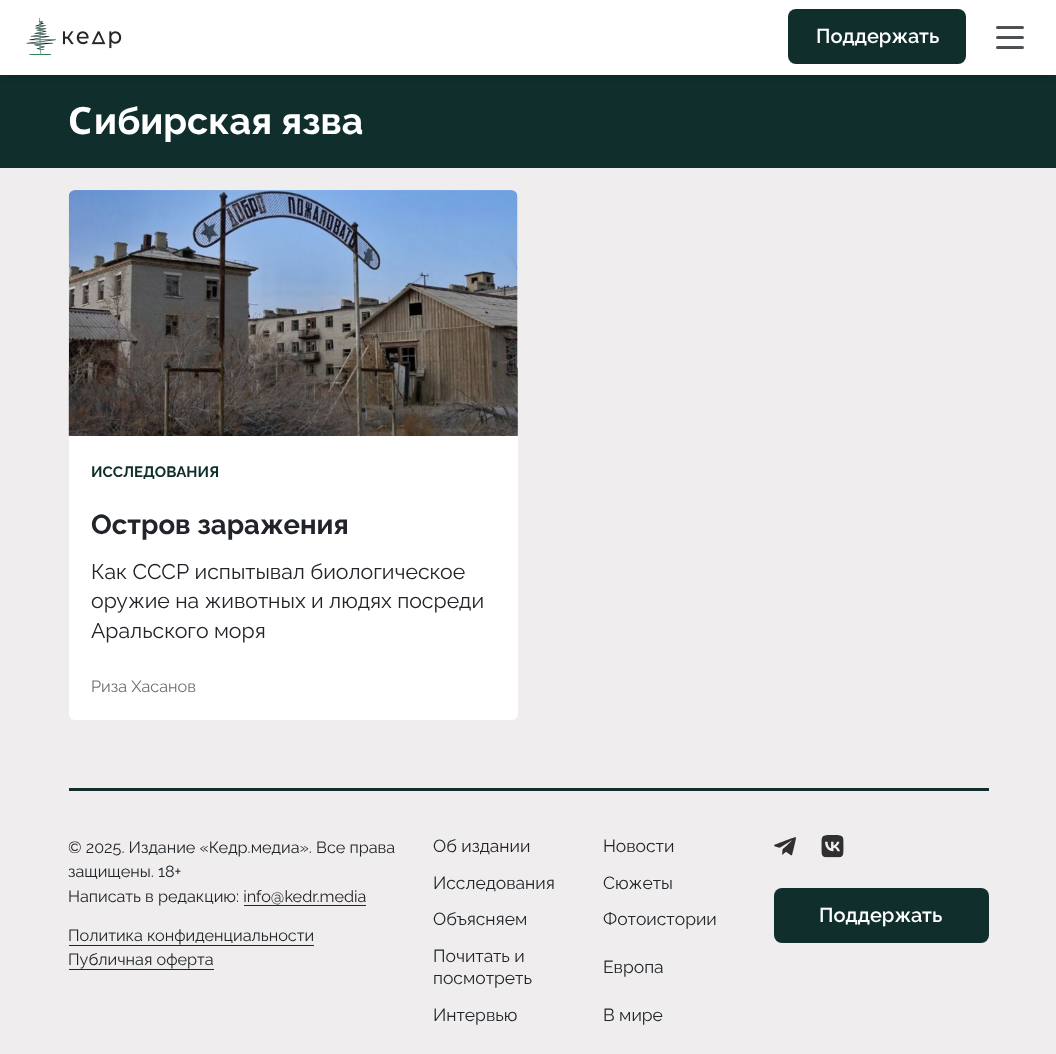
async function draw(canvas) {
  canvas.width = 1056;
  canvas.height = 1054;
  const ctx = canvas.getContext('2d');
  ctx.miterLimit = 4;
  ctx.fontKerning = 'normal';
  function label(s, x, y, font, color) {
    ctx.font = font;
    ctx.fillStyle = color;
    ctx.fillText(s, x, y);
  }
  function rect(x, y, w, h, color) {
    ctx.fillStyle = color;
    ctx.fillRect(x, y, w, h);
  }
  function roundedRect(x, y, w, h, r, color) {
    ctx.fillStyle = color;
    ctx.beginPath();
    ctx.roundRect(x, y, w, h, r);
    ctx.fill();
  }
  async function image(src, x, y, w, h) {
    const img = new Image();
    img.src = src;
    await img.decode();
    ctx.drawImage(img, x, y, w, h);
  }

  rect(0, 0, 1056, 1054, '#efeded');
  rect(0, 75, 1056, 93, '#0f2e2c');
  ctx.fillStyle = '#00000040';
  ctx.filter = 'blur(5px)';
  ctx.beginPath();
  ctx.rect(3, 4, 1051, 70);
  ctx.fill();
  ctx.filter = 'none';
  ctx.fillStyle = '#fff';
  ctx.beginPath();
  ctx.rect(-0.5, -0.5, 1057, 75);
  ctx.fill();
  ctx.strokeStyle = '#fff';
  ctx.stroke();
  await image('assets/img1.png', 26, 18, 96, 37);
  roundedRect(788, 9, 178, 55, 8, '#0f2e2c');
  label('Поддержать', 816, 43, '600 20px Raleway', '#fff');
  roundedRect(996, 26, 28, 3, 1.5, '#4d5154');
  roundedRect(996, 36, 28, 3, 1.5, '#4d5154');
  roundedRect(996, 46, 28, 3, 1.5, '#4d5154');
  label('С', 68, 134, 'bold 37.5px Noto Sans', '#fff');
  label('ибирская язва', 94, 134, 'bold 37.5px Raleway', '#fff');
  roundedRect(69, 190, 449, 530, 6, '#fff');
  await image('assets/img2.png', 68, 190, 450, 246);
  label('ИССЛЕДОВАНИЯ', 91, 477, 'bold 15px Raleway', '#0f2e2c');
  label('Остров заражения', 91, 534, 'bold 27.5px Raleway', '#212529');
  label('Как СССР испытывал биологическое', 91, 579, '21.25px Raleway', '#212529');
  label('оружие на животных и людях посреди', 91, 608, '21.25px Raleway', '#212529');
  label('Аральского моря', 91, 638, '21.25px Raleway', '#212529');
  label('Риза Хасанов', 91, 692, '16.25px Raleway', '#6f6f6f');
  rect(69, 788, 920, 3, '#0f2e2c');
  label('© 2025. Издание «Кедр.медиа». Все права', 68, 853, '16.25px Raleway', '#212529');
  label('защищены. 18+', 68, 877, '16.25px Raleway', '#212529');
  label('Написать в редакцию: info@kedr.media', 68, 902, '16.25px Raleway', '#212529');
  rect(244, 905, 122, 1, '#0f2e2c');
  label('Политика конфиденциальности', 68, 941, '16.25px Raleway', '#212529');
  rect(69, 945, 245, 1, '#0f2e2c');
  label('Публичная оферта', 68, 965, '16.25px Raleway', '#212529');
  rect(69, 969, 145, 1, '#0f2e2c');
  label('Об издании', 433, 852, '17.5px Raleway', '#212529');
  label('Новости', 603, 852, '17.5px Raleway', '#212529');
  label('Исследования', 433, 889, '17.5px Raleway', '#212529');
  label('Сюжеты', 603, 889, '17.5px Raleway', '#212529');
  label('Объясняем', 433, 925, '17.5px Raleway', '#212529');
  label('Фотоистории', 603, 925, '17.5px Raleway', '#212529');
  label('Почитать и', 433, 962, '17.5px Raleway', '#212529');
  label('посмотреть', 433, 984, '17.5px Raleway', '#212529');
  label('Европа', 603, 973, '17.5px Raleway', '#212529');
  label('Интервью', 433, 1021, '17.5px Raleway', '#212529');
  label('В мире', 603, 1021, '17.5px Raleway', '#212529');
  await image('assets/img3.png', 774, 837, 22, 19);
  await image('assets/img4.png', 821, 835, 23, 23);
  roundedRect(774, 888, 215, 55, 8, '#0f2e2c');
  label('Поддержать', 819, 922, '600 20px Raleway', '#fff');
}

draw(document.querySelector('canvas'));
